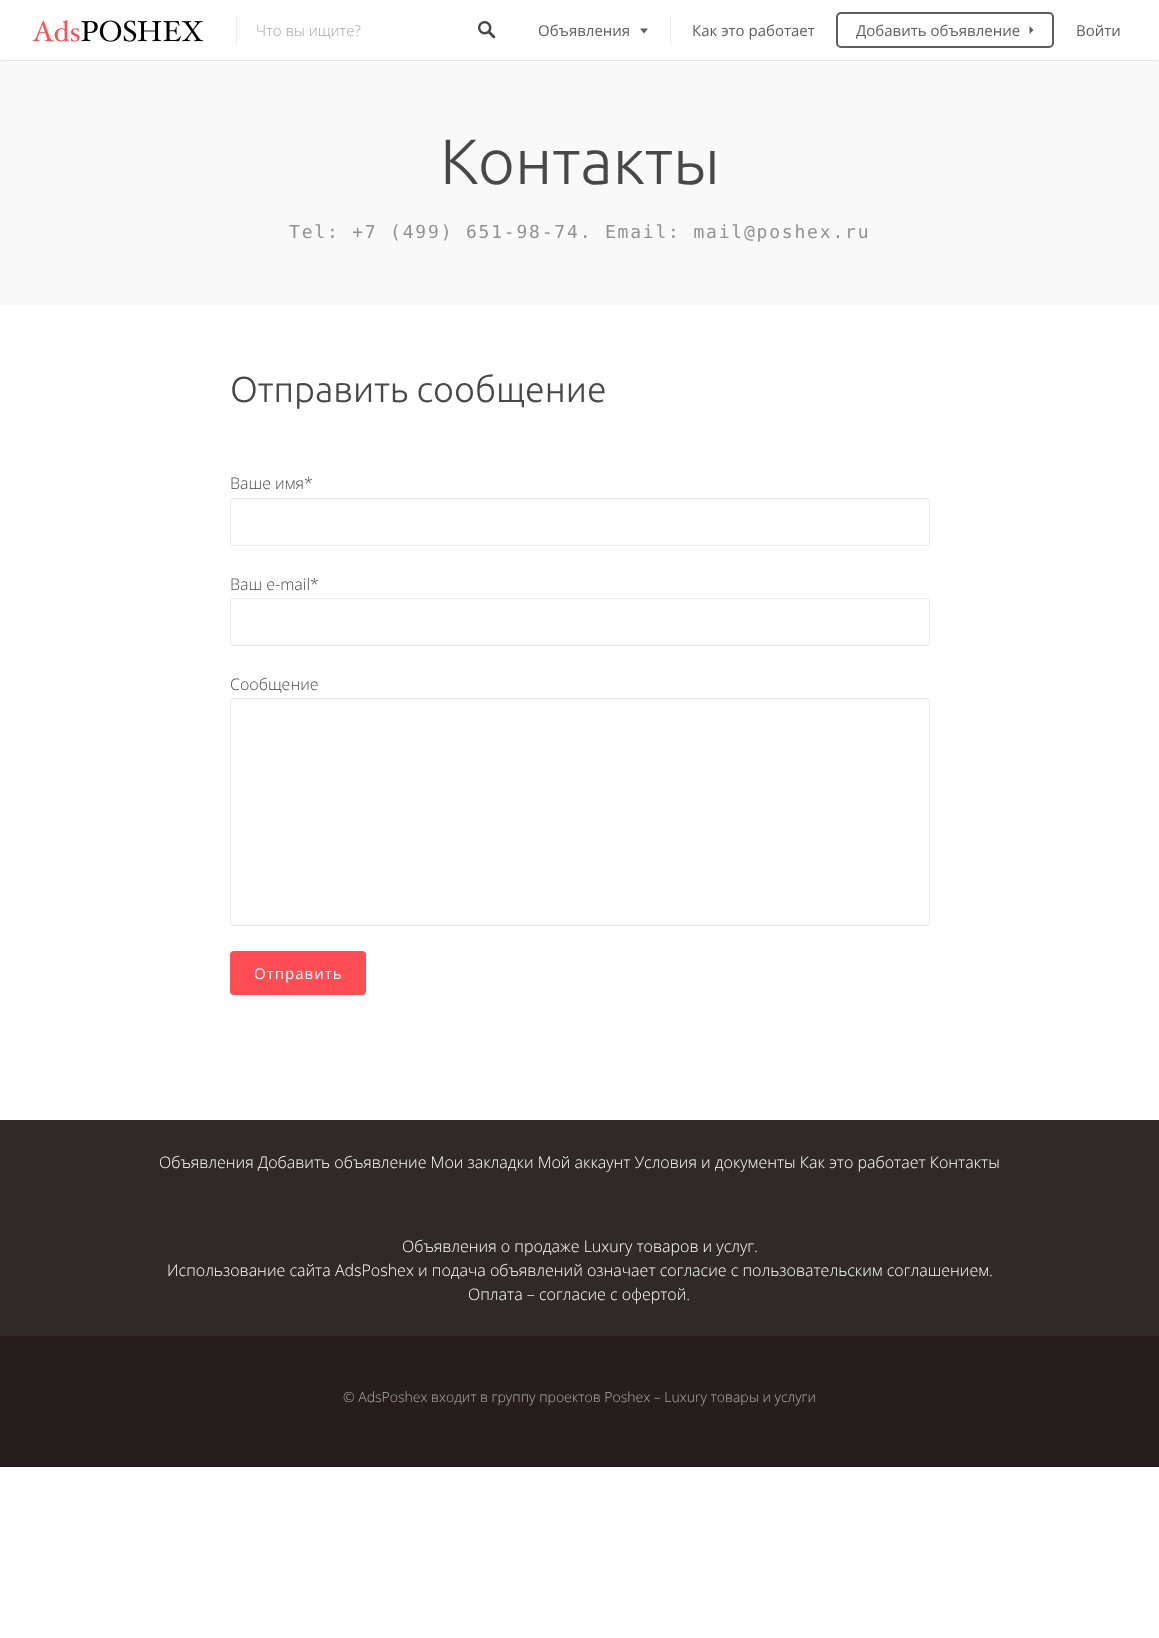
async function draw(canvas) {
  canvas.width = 1159;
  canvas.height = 1638;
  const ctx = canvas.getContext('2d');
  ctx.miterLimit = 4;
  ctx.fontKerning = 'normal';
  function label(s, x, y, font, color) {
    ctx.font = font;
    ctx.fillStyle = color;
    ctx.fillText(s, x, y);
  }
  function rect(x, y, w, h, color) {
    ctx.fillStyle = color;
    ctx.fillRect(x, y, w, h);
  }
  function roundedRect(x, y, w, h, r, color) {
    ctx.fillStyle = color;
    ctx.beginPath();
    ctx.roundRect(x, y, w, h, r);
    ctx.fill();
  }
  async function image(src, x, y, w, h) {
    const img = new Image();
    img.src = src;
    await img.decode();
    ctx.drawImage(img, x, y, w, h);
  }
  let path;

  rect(0, 0, 1159, 1638, '#fff');
  rect(0, 60, 1159, 245, '#f9f9f9');
  ctx.save();
  ctx.beginPath();
  ctx.rect(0, 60, 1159, 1);
  ctx.clip();
  ctx.fillStyle = '#00000040';
  ctx.filter = 'blur(1px)';
  ctx.beginPath();
  ctx.rect(0, 0, 1159, 60);
  ctx.fill();
  ctx.filter = 'none';
  ctx.restore();
  await image('assets/img1.png', 32, 20, 172, 22);
  rect(236, 15, 1, 30, '#ececec');
  label('Что вы ищите?', 256, 36, '300 15px Open Sans', '#a4a4a4');
  await image('assets/img2.png', 478, 21, 18, 18);
  label('Объявления', 538, 36, '15px Open Sans', '#5e5e5e');
  path = new Path2D('M640 28.5H648L644 33.5Z');
  ctx.fill(path);
  rect(670, 16, 1, 28, '#ececec');
  label('Как это работает', 692, 36, '15px Open Sans', '#5e5e5e');
  ctx.beginPath();
  ctx.roundRect(837, 13, 216, 34, 4);
  ctx.strokeStyle = '#5e5e5e';
  ctx.lineWidth = 2;
  ctx.stroke();
  label('Добавить объявление', 856, 36, '15px Open Sans', '#5e5e5e');
  path = new Path2D('M1029.5 34V26L1033.5 30Z');
  ctx.fill(path);
  label('Войти', 1076, 36, '15px Open Sans', '#5e5e5e');
  label('Контакты', 440, 184, '300 64px Ubuntu', '#484848');
  ctx.letterSpacing = '1.8px';
  label('Tel: +7 (499) 651-98-74. Email: mail@poshex.ru', 289, 238, '18px DejaVu Sans Mono', '#919191');
  ctx.letterSpacing = '0px';
  label('Отправить сообщение', 230, 402, '300 36px Ubuntu', '#484848');
  label('Ваше имя*', 230, 489, '300 16px Open Sans', '#484848');
  ctx.beginPath();
  ctx.roundRect(230.5, 498.5, 699, 47, 2.5);
  ctx.strokeStyle = '#ececec';
  ctx.lineWidth = 1;
  ctx.stroke();
  label('Ваш e-mail*', 230, 590, '300 16px Open Sans', '#484848');
  ctx.beginPath();
  ctx.roundRect(230.5, 598.5, 699, 47, 2.5);
  ctx.stroke();
  label('Сообщение', 230, 690, '300 16px Open Sans', '#484848');
  ctx.beginPath();
  ctx.roundRect(230.5, 698.5, 699, 227, 2.5);
  ctx.stroke();
  roundedRect(230, 951, 136, 44, 4, '#ff4d55');
  ctx.letterSpacing = '1px';
  label('Отправить', 254, 979, '15px Open Sans', '#fff');
  rect(0, 1336, 1159, 131, '#261e1e');
  rect(0, 1120, 1159, 216, '#2f2929');
  ctx.letterSpacing = '0px';
  label('Объявления Добавить объявление Мои закладки Мой аккаунт Условия и документы Как это работает Контакты', 159, 1168, '300 16px Open Sans', '#fff');
  label('Объявления о продаже Luxury товаров и услуг.', 402, 1252, '300 16px Open Sans', '#fff');
  label('Использование сайта AdsPoshex и подача объявлений означает согласие с пользовательским соглашением.', 167, 1276, '300 16px Open Sans', '#fff');
  label('Оплата – согласие с офертой.', 468, 1300, '300 16px Open Sans', '#fff');
  label('© AdsPoshex входит в группу проектов Poshex – Luxury товары и услуги', 343, 1402, '300 14px Open Sans', '#adadb2');
}

draw(document.querySelector('canvas'));
